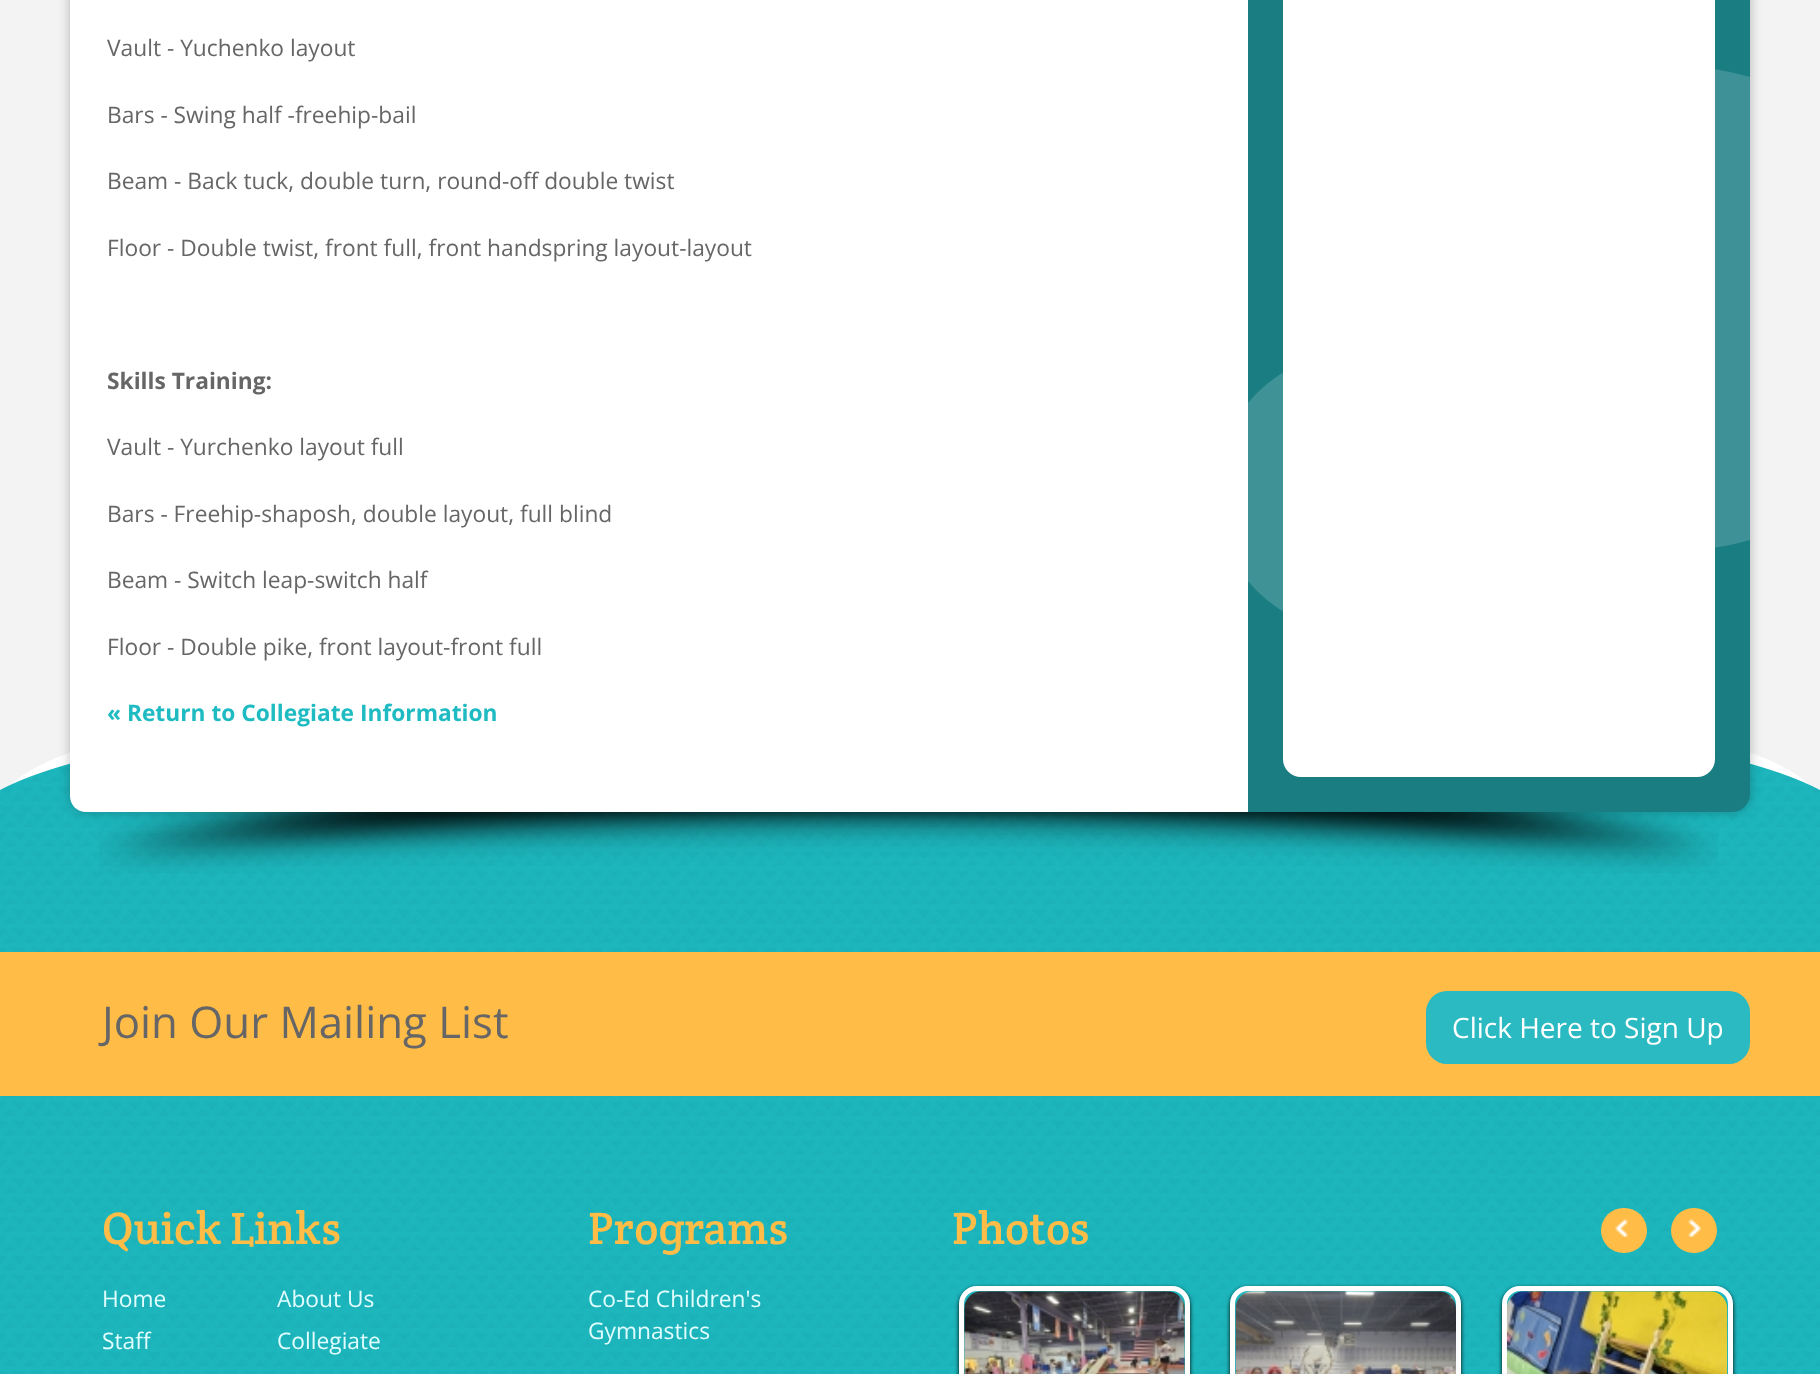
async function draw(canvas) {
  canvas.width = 1820;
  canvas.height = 1374;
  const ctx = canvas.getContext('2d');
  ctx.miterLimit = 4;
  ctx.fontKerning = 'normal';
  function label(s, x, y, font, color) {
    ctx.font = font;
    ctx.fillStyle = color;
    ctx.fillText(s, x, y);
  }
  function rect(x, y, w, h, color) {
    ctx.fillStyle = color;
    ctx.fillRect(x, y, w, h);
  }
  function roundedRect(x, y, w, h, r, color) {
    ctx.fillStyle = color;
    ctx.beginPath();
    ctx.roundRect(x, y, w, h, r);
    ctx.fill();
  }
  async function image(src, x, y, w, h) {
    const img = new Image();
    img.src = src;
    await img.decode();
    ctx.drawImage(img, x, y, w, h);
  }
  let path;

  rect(0, 0, 1820, 1374, '#f3f3f3');
  ctx.fillStyle = '#fff';
  ctx.beginPath();
  ctx.ellipse(910, 806, 910, 139, 0, 0, 2 * Math.PI);
  ctx.fill();
  await image('assets/img3.png', 0, 812, 1820, 562);
  await image('assets/img1.png', 99, 812, 1619, 61);
  await image('assets/img2.png', 0, 763, 1820, 49);
  ctx.fillStyle = '#00000042';
  ctx.filter = 'blur(6px)';
  ctx.beginPath();
  ctx.roundRect(70, -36, 1680, 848, 18);
  ctx.fill();
  ctx.filter = 'none';
  ctx.fillStyle = '#fff';
  path = new Path2D('M70-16H1248V812H86C77 812 70 805 70 796Z');
  ctx.fill(path);
  label('Vault - Yuchenko layout', 107, 56, '22.75px Open Sans', '#666');
  label('Bars - Swing half -freehip-bail', 107, 123, '22.75px Open Sans', '#666');
  label('Beam - Back tuck, double turn, round-off double twist', 107, 189, '22.75px Open Sans', '#666');
  label('Floor - Double twist, front full, front handspring layout-layout', 107, 256, '22.75px Open Sans', '#666');
  label('Skills Training:', 107, 389, 'bold 22.75px Open Sans', '#666');
  label('Vault - Yurchenko layout full', 107, 455, '22.75px Open Sans', '#666');
  label('Bars - Freehip-shaposh, double layout, full blind', 107, 522, '22.75px Open Sans', '#666');
  label('Beam - Switch leap-switch half', 107, 588, '22.75px Open Sans', '#666');
  label('Floor - Double pike, front layout-front full', 107, 655, '22.75px Open Sans', '#666');
  label('« Return to Collegiate Information', 107, 721, 'bold 22.75px Open Sans', '#1fbbc2');
  ctx.fillStyle = '#1a7d82';
  path = new Path2D('M1248-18H1750V794C1750 804 1742 812 1732 812H1248Z');
  ctx.fill(path);
  ctx.save();
  path = new Path2D('M1248-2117H1750V794C1750 804 1742 812 1732 812H1248Z');
  ctx.clip(path);
  ctx.fillStyle = '#3f9296';
  ctx.beginPath();
  ctx.arc(1356, 492, 140, 0, 2 * Math.PI);
  ctx.fill();
  ctx.fillStyle = '#ffffff29';
  ctx.beginPath();
  ctx.arc(1681.5, 308.5, 241.5, 0, 2 * Math.PI);
  ctx.fill();
  ctx.restore();
  roundedRect(1283, -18, 432, 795, 18, '#fff');
  rect(0, 952, 1820, 144, '#ffbc47');
  label('Join Our Mailing List', 102, 1038, '43.75px Open Sans', '#666');
  roundedRect(1426, 991, 324, 73, 21, '#2bbac2');
  label('Click Here to Sign Up', 1452, 1038, '28px Open Sans', '#fff');
  label('Quick Links', 102, 1244, '45.5px Crete Round', '#ffbc47');
  label('Home', 102, 1307, '22.75px Open Sans', '#e0fdff');
  label('Staff', 102, 1349, '22.75px Open Sans', '#e0fdff');
  label('About Us', 277, 1307, '22.75px Open Sans', '#e0fdff');
  label('Collegiate', 277, 1349, '22.75px Open Sans', '#e0fdff');
  label('Programs', 588, 1244, '45.5px Crete Round', '#ffbc47');
  label('Co-Ed Children\'s', 588, 1307, '22.75px Open Sans', '#e0fdff');
  label('Gymnastics', 588, 1339, '22.75px Open Sans', '#e0fdff');
  roundedRect(1601, 1208, 46, 45, 22.5, '#ffbc47');
  await image('assets/img4.png', 1615, 1219, 13, 18);
  roundedRect(1671, 1208, 46, 45, 22.5, '#ffbc47');
  await image('assets/img5.png', 1688, 1219, 13, 18);
  ctx.save();
  path = new Path2D('M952 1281H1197V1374H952ZM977 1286H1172C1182 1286 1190 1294 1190 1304V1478C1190 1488 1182 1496 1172 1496H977C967 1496 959 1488 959 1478V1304C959 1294 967 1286 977 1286Z');
  ctx.clip(path, 'evenodd');
  ctx.fillStyle = '#000';
  ctx.filter = 'blur(2px)';
  ctx.beginPath();
  ctx.roundRect(959, 1288, 231, 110, 18);
  ctx.fill();
  ctx.filter = 'none';
  ctx.restore();
  ctx.beginPath();
  ctx.roundRect(961.5, 1288.5, 226, 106, 15.5);
  ctx.strokeStyle = '#fff';
  ctx.lineWidth = 5;
  ctx.stroke();
  await image('assets/img6.png', 964, 1291, 221, 83);
  ctx.save();
  path = new Path2D('M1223 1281H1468V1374H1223ZM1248 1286H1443C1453 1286 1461 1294 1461 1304V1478C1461 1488 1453 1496 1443 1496H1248C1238 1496 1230 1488 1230 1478V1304C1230 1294 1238 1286 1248 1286Z');
  ctx.clip(path, 'evenodd');
  ctx.fillStyle = '#000';
  ctx.filter = 'blur(2px)';
  ctx.beginPath();
  ctx.roundRect(1230, 1288, 231, 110, 18);
  ctx.fill();
  ctx.filter = 'none';
  ctx.restore();
  ctx.beginPath();
  ctx.roundRect(1232.5, 1288.5, 226, 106, 15.5);
  ctx.stroke();
  await image('assets/img7.png', 1235, 1291, 221, 83);
  ctx.save();
  path = new Path2D('M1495 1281H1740V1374H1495ZM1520 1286H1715C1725 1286 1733 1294 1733 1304V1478C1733 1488 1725 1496 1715 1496H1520C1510 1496 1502 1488 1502 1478V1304C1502 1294 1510 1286 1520 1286Z');
  ctx.clip(path, 'evenodd');
  ctx.fillStyle = '#000';
  ctx.filter = 'blur(2px)';
  ctx.beginPath();
  ctx.roundRect(1502, 1288, 231, 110, 18);
  ctx.fill();
  ctx.filter = 'none';
  ctx.restore();
  ctx.beginPath();
  ctx.roundRect(1504.5, 1288.5, 226, 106, 15.5);
  ctx.stroke();
  await image('assets/img8.png', 1506, 1291, 222, 83);
  label('Photos', 952, 1244, '45.5px Crete Round', '#ffbc47');
}

draw(document.querySelector('canvas'));
